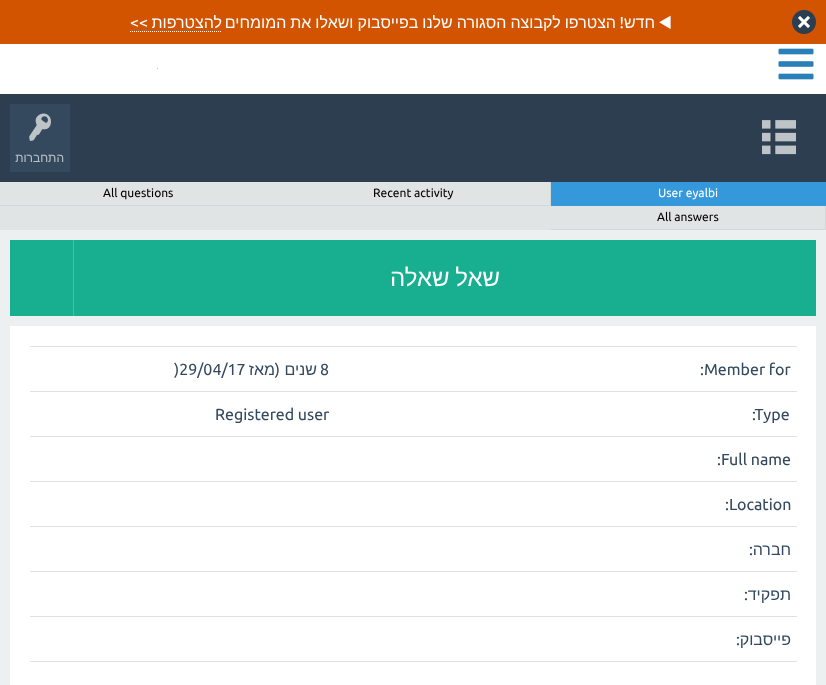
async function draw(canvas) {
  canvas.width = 826;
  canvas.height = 685;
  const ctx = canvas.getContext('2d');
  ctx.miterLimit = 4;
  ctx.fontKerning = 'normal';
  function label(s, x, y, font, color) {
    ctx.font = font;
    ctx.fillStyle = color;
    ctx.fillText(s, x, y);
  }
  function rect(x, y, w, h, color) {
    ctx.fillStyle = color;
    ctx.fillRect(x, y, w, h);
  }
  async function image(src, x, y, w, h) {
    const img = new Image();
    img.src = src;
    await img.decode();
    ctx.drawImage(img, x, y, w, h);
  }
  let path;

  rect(0, 0, 826, 685, '#ecf0f1');
  rect(0, 0, 826, 44, '#d35400');
  ctx.direction = 'rtl';
  label('>>', 148, 28, '16px Ubuntu', '#fff');
  path = new Path2D('M130 31.5H222');
  ctx.strokeStyle = '#fff';
  ctx.setLineDash([1, 1]);
  ctx.stroke(path);
  label('להצטרפות', 222, 28, '16px Liberation Sans', '#fff');
  ctx.wordSpacing = '-0.5px';
  label('הצטרפו לקבוצה הסגורה שלנו בפייסבוק ושאלו את המומחים', 616, 28, '16px Liberation Sans', '#fff');
  ctx.wordSpacing = '0px';
  label('!', 624, 28, '16px Ubuntu', '#fff');
  label('חדש', 655, 28, '16px Liberation Sans', '#fff');
  label('◀', 672, 28, '16px FreeSans', '#fff');
  await image('assets/img1.png', 792, 10, 24, 24);
  rect(0, 44, 826, 50, '#fff');
  rect(157, 68, 1, 1, '#e9b6b6');
  await image('assets/img2.png', 778, 48, 36, 32);
  rect(0, 94, 826, 88, '#2c3e50');
  await image('assets/img3.png', 762, 120, 34, 35);
  rect(10, 104, 60, 68, '#34495e');
  await image('assets/img4.png', 29, 113, 22, 28);
  label('התחברות', 64, 162, '12px Liberation Sans', '#bdc3c7');
  rect(0, 182, 825, 48, '#e0e4e5');
  rect(0, 205, 275, 1, '#cfd9db');
  ctx.direction = 'ltr';
  label('All questions', 103, 197, '12px Ubuntu', '#000');
  ctx.save();
  ctx.beginPath();
  ctx.rect(275, 182, 276, 24);
  ctx.clip();
  ctx.fillStyle = '#cfd9db';
  path = new Path2D('M176 83H650V305H176ZM274 181H550V205H274Z');
  ctx.fill(path, 'evenodd');
  ctx.restore();
  label('Recent activity', 373, 197, '12px Ubuntu', '#000');
  rect(551, 182, 275, 24, '#3498db');
  label('User eyalbi', 658, 197, '12px Ubuntu', '#fff');
  ctx.save();
  ctx.beginPath();
  ctx.rect(551, 206, 275, 24);
  ctx.clip();
  ctx.fillStyle = '#cfd9db';
  path = new Path2D('M452 107H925V329H452ZM550 205H825V229H550Z');
  ctx.fill(path, 'evenodd');
  ctx.restore();
  label('All answers', 657, 221, '12px Ubuntu', '#000');
  rect(10, 240, 63, 76, '#18af91');
  rect(73, 240, 1, 76, '#1dd2af');
  rect(74, 240, 742, 76, '#18af91');
  ctx.wordSpacing = '-1px';
  ctx.direction = 'rtl';
  label('שאל שאלה', 500, 286, '24px Liberation Sans', '#fff');
  rect(10, 326, 806, 359, '#fff');
  rect(30, 346, 767, 1, '#e0e0e0');
  ctx.wordSpacing = '0px';
  ctx.direction = 'ltr';
  label(')29/04/17', 174, 375, '16px Ubuntu', '#34495e');
  ctx.direction = 'rtl';
  label('מאז', 275, 375, '16px Liberation Sans', '#34495e');
  label('(', 280, 375, '16px Ubuntu', '#34495e');
  label('שנים', 317, 375, '16px Liberation Sans', '#34495e');
  ctx.direction = 'ltr';
  label('8', 320, 375, '16px Ubuntu', '#34495e');
  label(':Member for', 700, 375, '16px Ubuntu', '#34495e');
  rect(30, 391, 767, 1, '#e0e0e0');
  label('Registered user', 215, 420, '16px Ubuntu', '#34495e');
  label(':Type', 752, 420, '16px Ubuntu', '#34495e');
  rect(30, 436, 767, 1, '#e0e0e0');
  label(':Full name', 717, 465, '16px Ubuntu', '#34495e');
  rect(30, 481, 767, 1, '#e0e0e0');
  label(':Location', 725, 510, '16px Ubuntu', '#34495e');
  rect(30, 526, 767, 1, '#e0e0e0');
  ctx.direction = 'rtl';
  label(':', 753, 555, '16px Ubuntu', '#34495e');
  label('חברה', 791, 555, '16px Liberation Sans', '#34495e');
  rect(30, 571, 767, 1, '#e0e0e0');
  label(':', 748, 600, '16px Ubuntu', '#34495e');
  label('תפקיד', 791, 600, '16px Liberation Sans', '#34495e');
  rect(30, 616, 767, 1, '#e0e0e0');
  label(':', 740, 645, '16px Ubuntu', '#34495e');
  label('פייסבוק', 791, 645, '16px Liberation Sans', '#34495e');
  rect(30, 661, 767, 1, '#e0e0e0');
}

draw(document.querySelector('canvas'));
